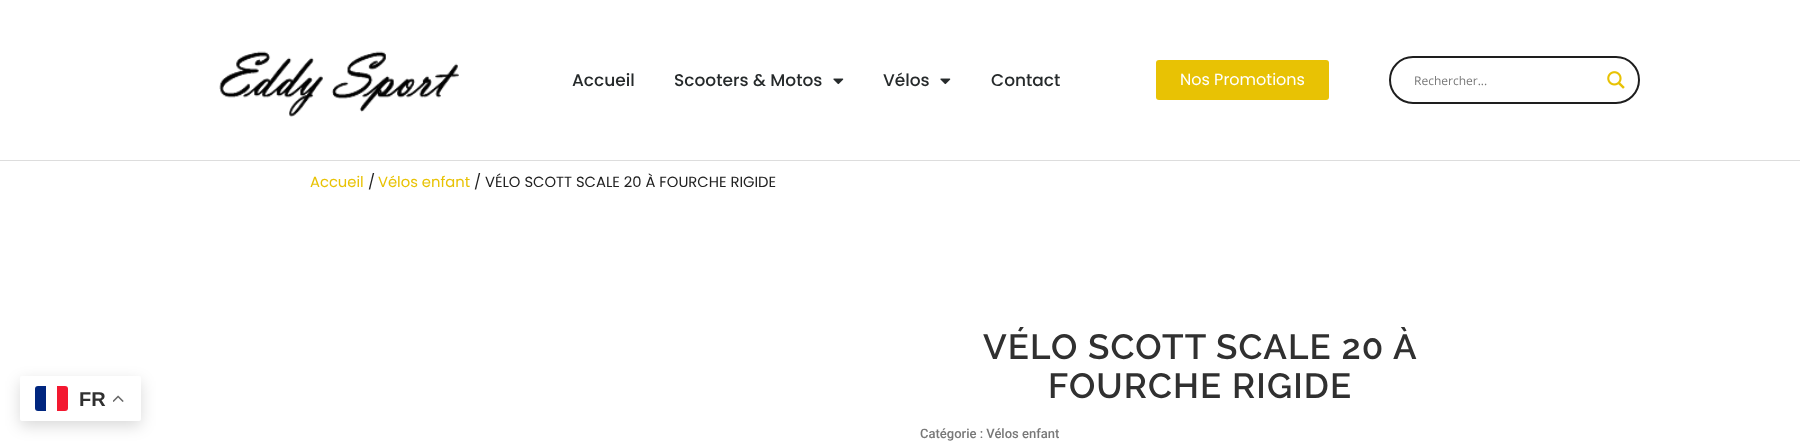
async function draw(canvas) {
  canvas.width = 1800;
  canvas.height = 448;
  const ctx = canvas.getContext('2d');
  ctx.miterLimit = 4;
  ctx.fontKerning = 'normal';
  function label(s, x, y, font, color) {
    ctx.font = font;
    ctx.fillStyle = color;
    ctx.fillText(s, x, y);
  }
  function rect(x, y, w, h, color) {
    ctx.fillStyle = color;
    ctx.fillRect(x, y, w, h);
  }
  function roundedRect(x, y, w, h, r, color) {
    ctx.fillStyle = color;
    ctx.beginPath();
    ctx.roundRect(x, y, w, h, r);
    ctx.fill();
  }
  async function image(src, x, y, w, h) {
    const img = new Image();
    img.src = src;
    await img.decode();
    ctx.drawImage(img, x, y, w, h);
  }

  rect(0, 0, 1800, 448, '#fff');
  rect(0, 160, 1800, 1, '#ddd');
  await image('assets/img1.png', 219, 51, 240, 66);
  label('Accueil', 572, 86, '500 17px Poppins', '#262a2b');
  label('Scooters & Motos', 674, 86, '500 17px Poppins', '#262a2b');
  await image('assets/img2.png', 833, 78, 11, 7);
  label('Vélos', 883, 86, '500 17px Poppins', '#262a2b');
  await image('assets/img2.png', 940, 78, 11, 7);
  label('Contact', 991, 86, '500 17px Poppins', '#262a2b');
  roundedRect(1156, 60, 173, 40, 3, '#e8c204');
  label('Nos Promotions', 1180, 85, '16px Poppins', '#fff');
  ctx.beginPath();
  ctx.roundRect(1390, 57, 249, 46, 23);
  ctx.strokeStyle = '#1e1e1e';
  ctx.lineWidth = 2;
  ctx.stroke();
  label('Rechercher...', 1414, 85, '12px Open Sans', '#787878');
  await image('assets/img3.png', 1607, 71, 18, 18);
  ctx.fillStyle = '#00000026';
  ctx.filter = 'blur(7.5px)';
  ctx.beginPath();
  ctx.roundRect(20, 381, 121, 45, 2);
  ctx.fill();
  ctx.filter = 'none';
  roundedRect(20, 376, 121, 45, 2, '#fff');
  ctx.fillStyle = '#00267f';
  ctx.beginPath();
  ctx.roundRect(35, 386, 11, 25, [3, 0, 0, 3]);
  ctx.fill();
  ctx.fillStyle = '#f31830';
  ctx.beginPath();
  ctx.roundRect(57, 386, 11, 25, [0, 3, 3, 0]);
  ctx.fill();
  label('FR', 79, 406, 'bold 20px Liberation Sans', '#303030');
  await image('assets/img4.png', 113, 395, 11, 7);
  label('Accueil', 310, 187, '14.75px Poppins', '#e8c204');
  label('/', 368, 187, '14.75px Poppins', '#212121');
  label('Vélos enfant', 378, 187, '14.75px Poppins', '#e8c204');
  label('/ VÉLO SCOTT SCALE 20 À FOURCHE RIGIDE', 474, 187, '14.75px Poppins', '#212121');
  ctx.letterSpacing = '1.1px';
  label('VÉLO SCOTT SCALE 20 À', 983, 359, '600 35px Raleway', '#303030');
  label('FOURCHE RIGIDE', 1048, 398, '600 35px Raleway', '#303030');
  ctx.letterSpacing = '0px';
  label('Catégorie : Vélos enfant', 920, 438, '500 13px Roboto', '#787878');
}

draw(document.querySelector('canvas'));
